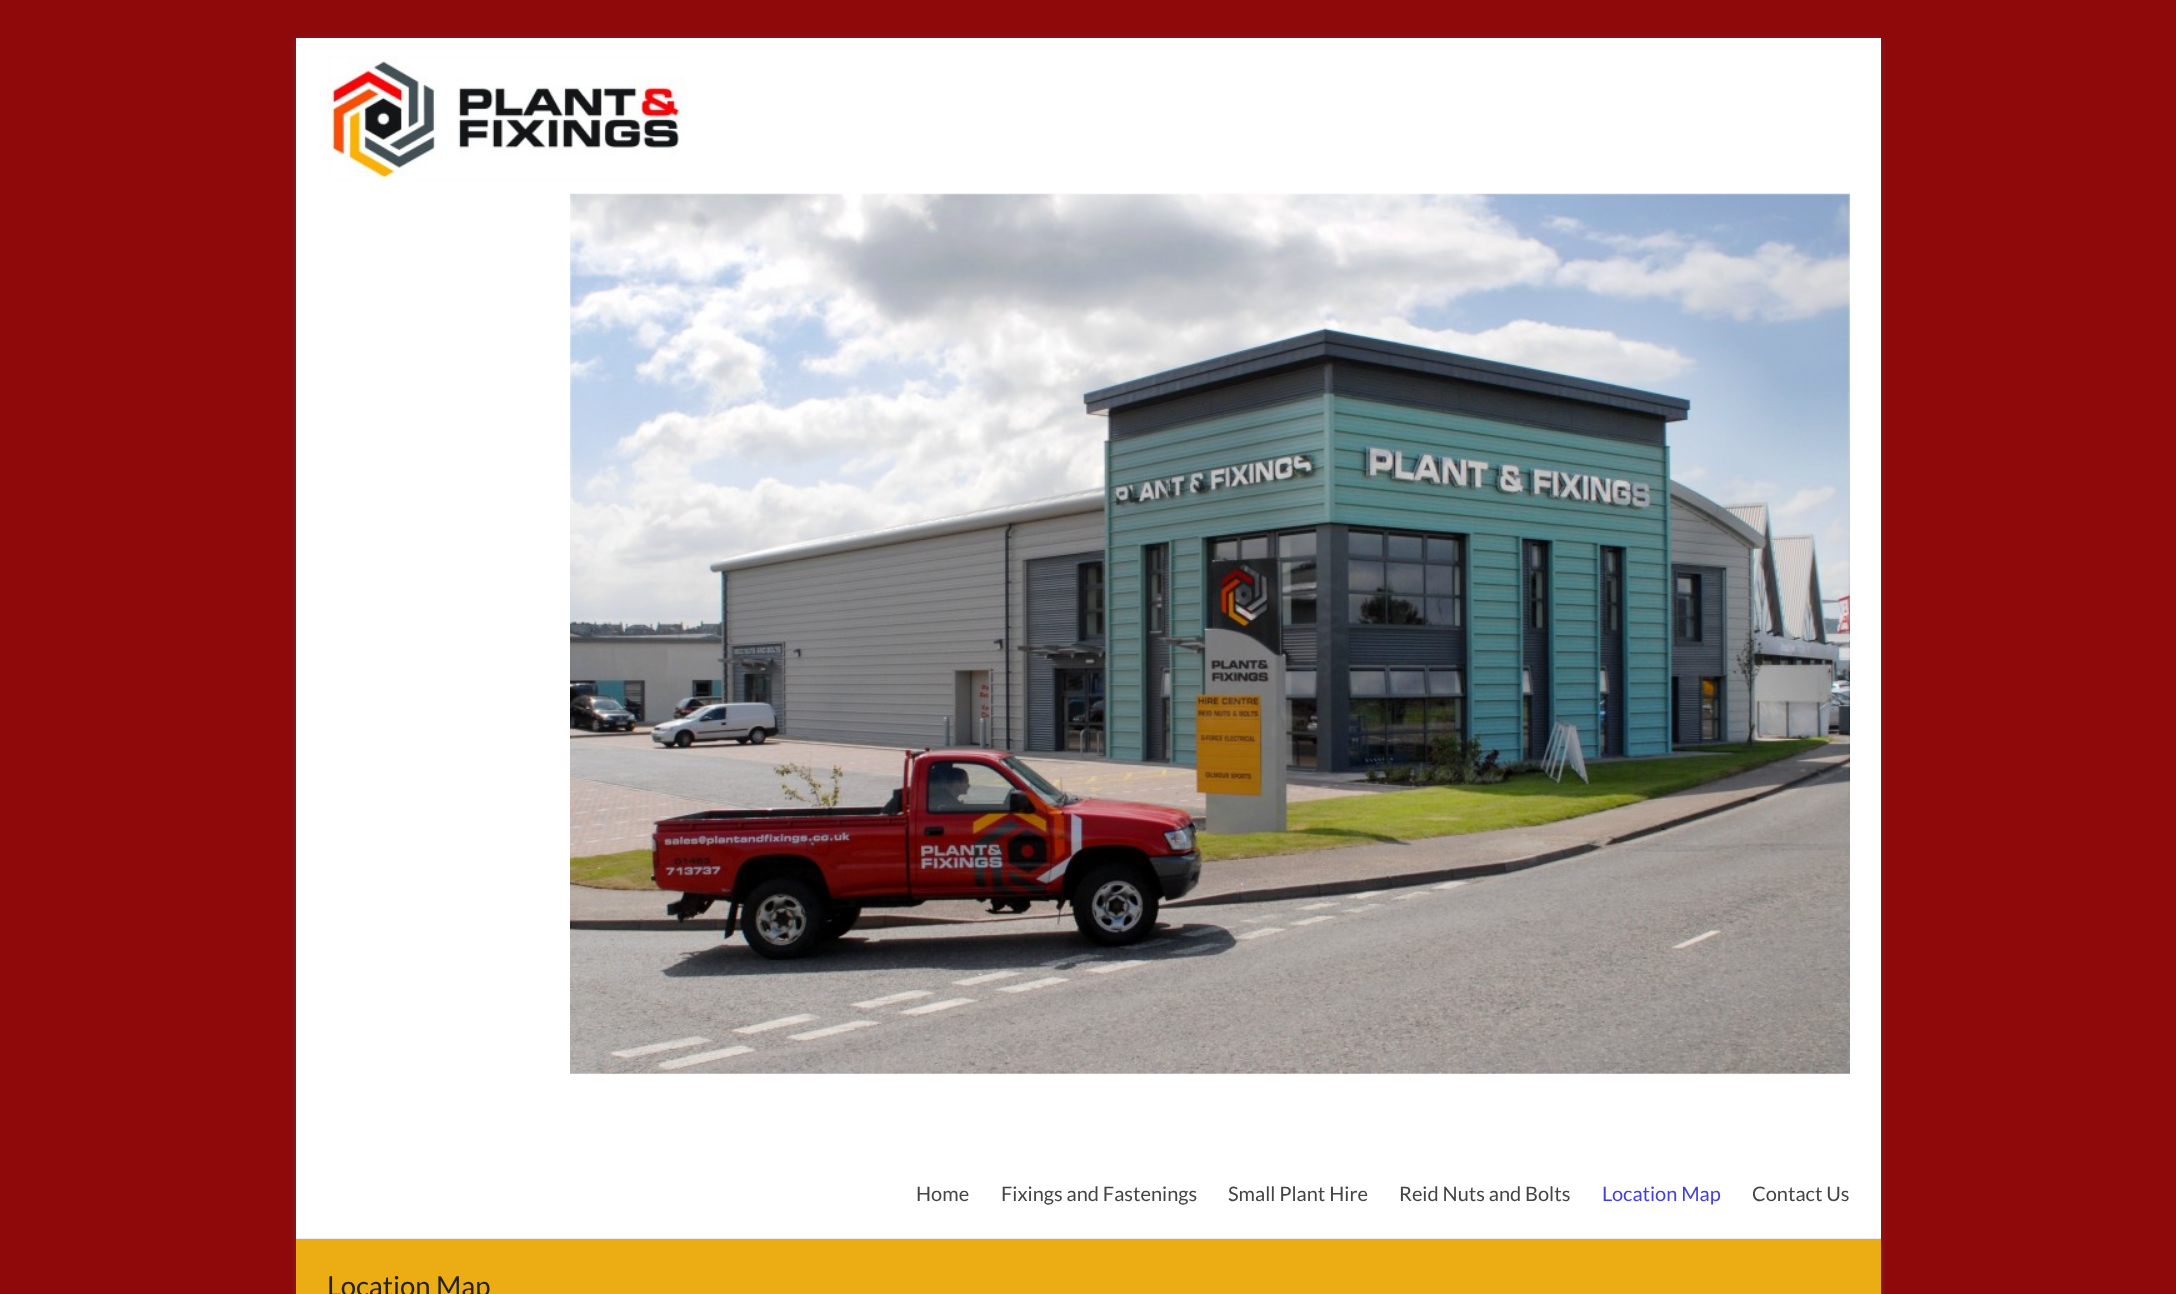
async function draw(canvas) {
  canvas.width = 2176;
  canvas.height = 1294;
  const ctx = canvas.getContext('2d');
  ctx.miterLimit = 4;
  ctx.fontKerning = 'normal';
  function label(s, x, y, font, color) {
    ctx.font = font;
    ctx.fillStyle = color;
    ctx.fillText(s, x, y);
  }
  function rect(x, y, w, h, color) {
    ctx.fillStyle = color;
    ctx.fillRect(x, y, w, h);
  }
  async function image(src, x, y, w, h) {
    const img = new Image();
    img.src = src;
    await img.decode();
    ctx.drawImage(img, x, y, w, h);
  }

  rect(0, 0, 2176, 1294, '#8f090b');
  ctx.fillStyle = '#6464644d';
  ctx.filter = 'blur(4px)';
  ctx.beginPath();
  ctx.rect(296, 40, 1585, 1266);
  ctx.fill();
  ctx.filter = 'none';
  rect(296, 38, 1585, 1200, '#fff');
  rect(296, 1238, 1585, 1, '#eaeaea');
  await image('assets/img1.png', 327, 56, 358, 125);
  await image('assets/img2.png', 570, 193, 1280, 881);
  label('Home', 916, 1201, '20px Lato', '#444');
  label('Fixings and Fastenings', 1001, 1201, '20px Lato', '#444');
  label('Small Plant Hire', 1228, 1201, '20px Lato', '#444');
  label('Reid Nuts and Bolts', 1399, 1201, '20px Lato', '#444');
  label('Location Map', 1602, 1201, '20px Lato', '#4640d9');
  label('Contact Us', 1752, 1201, '20px Lato', '#444');
  rect(296, 1239, 1585, 55, '#ecac13');
  label('Location Map', 327, 1296, '27.5px Lato', '#222');
}

draw(document.querySelector('canvas'));
